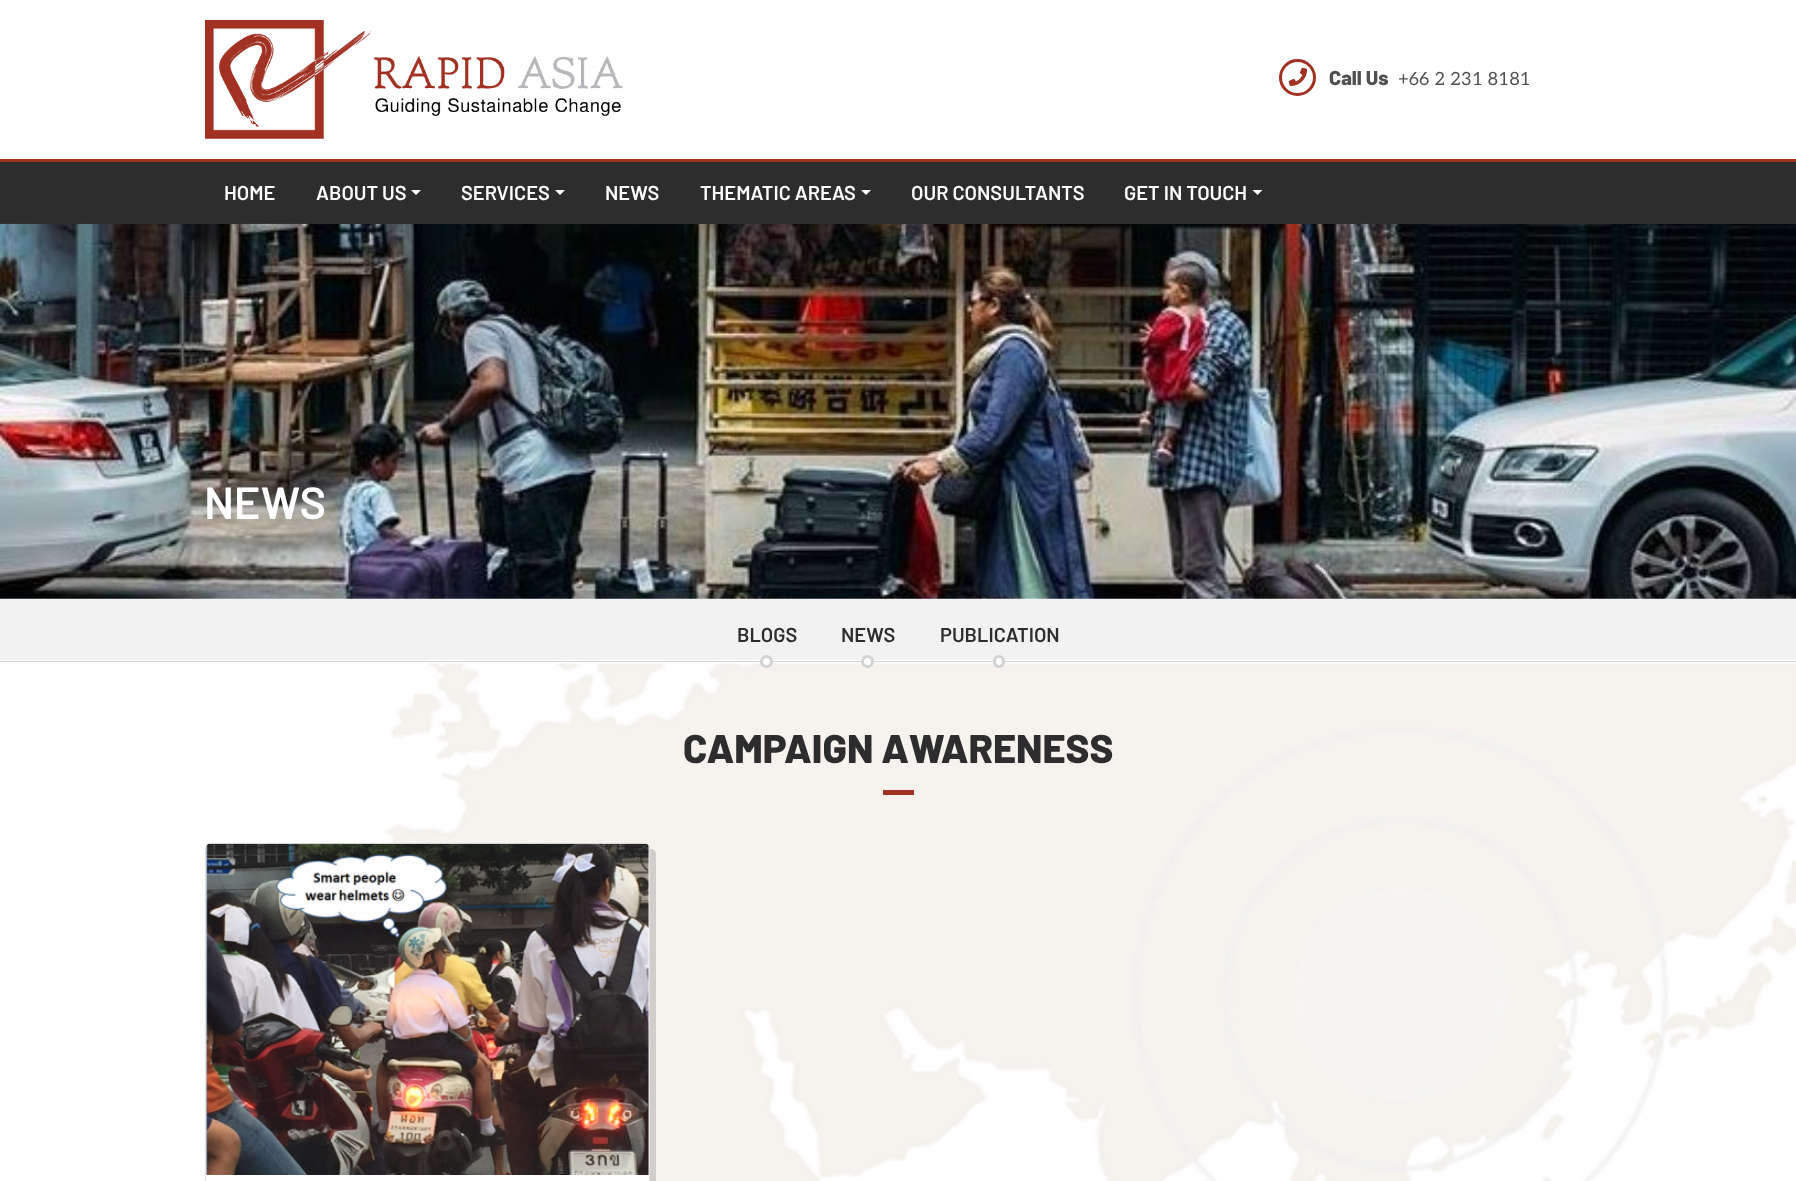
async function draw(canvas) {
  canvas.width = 1796;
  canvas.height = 1181;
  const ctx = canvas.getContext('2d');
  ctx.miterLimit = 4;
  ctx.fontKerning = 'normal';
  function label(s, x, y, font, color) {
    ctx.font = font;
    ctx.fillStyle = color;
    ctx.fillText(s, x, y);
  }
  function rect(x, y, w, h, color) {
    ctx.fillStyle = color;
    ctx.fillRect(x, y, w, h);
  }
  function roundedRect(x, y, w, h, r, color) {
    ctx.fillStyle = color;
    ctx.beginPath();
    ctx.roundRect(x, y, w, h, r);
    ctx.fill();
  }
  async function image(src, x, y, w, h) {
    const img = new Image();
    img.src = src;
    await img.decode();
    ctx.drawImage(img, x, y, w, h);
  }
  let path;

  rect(0, 0, 1796, 1181, '#fff');
  await image('assets/img1.png', 205, 20, 418, 119);
  ctx.beginPath();
  ctx.arc(1297.5, 77.5, 17, 0, 2 * Math.PI);
  ctx.strokeStyle = '#a03123';
  ctx.lineWidth = 3;
  ctx.stroke();
  await image('assets/img2.png', 1288, 67, 20, 19);
  label('Call Us', 1329, 85, '800 20px Barlow', '#505050');
  label('+66 2 231 8181', 1398, 85, '18.25px Aleo', '#505050');
  rect(0, 162, 1796, 62, '#2d2d2d');
  rect(0, 159, 1796, 3, '#a03123');
  label('HOME', 224, 200, '600 20px Barlow', '#fff');
  label('ABOUT US', 316, 200, '600 20px Barlow', '#fff');
  path = new Path2D('M411 190H421L416 195Z');
  ctx.fill(path);
  label('SERVICES', 461, 200, '600 20px Barlow', '#fff');
  path = new Path2D('M555 190H565L560 195Z');
  ctx.fill(path);
  label('NEWS', 605, 200, '600 20px Barlow', '#fff');
  label('THEMATIC AREAS', 700, 200, '600 20px Barlow', '#fff');
  path = new Path2D('M861 190H871L866 195Z');
  ctx.fill(path);
  label('OUR CONSULTANTS', 911, 200, '600 20px Barlow', '#fff');
  label('GET IN TOUCH', 1124, 200, '600 20px Barlow', '#fff');
  path = new Path2D('M1252.5 190H1262.5L1257.5 195Z');
  ctx.fill(path);
  await image('assets/img3.png', 0, 223, 1796, 376);
  label('NEWS', 204, 519, '600 45px Barlow', '#fff');
  rect(0, 661, 1796, 1, '#d1d2d4');
  rect(0, 599, 1796, 61, '#f2f2f2');
  label('BLOGS', 737, 642, '600 20px Barlow', '#2d2d2d');
  await image('assets/img4.png', 270, 663, 1526, 518);
  ctx.fillStyle = '#fff';
  ctx.beginPath();
  ctx.arc(766.5, 661.5, 5, 0, 2 * Math.PI);
  ctx.fill();
  ctx.strokeStyle = '#d1d2d4';
  ctx.stroke();
  label('NEWS', 841, 642, '600 20px Barlow', '#2d2d2d');
  ctx.fillStyle = '#fff';
  ctx.beginPath();
  ctx.arc(867.5, 661.5, 5, 0, 2 * Math.PI);
  ctx.fill();
  ctx.stroke();
  label('PUBLICATION', 940, 642, '600 20px Barlow', '#2d2d2d');
  ctx.fillStyle = '#fff';
  ctx.beginPath();
  ctx.roundRect(994.5, 656.5, 9, 10, 4.5);
  ctx.fill();
  ctx.stroke();
  label('CAMPAIGN AWARENESS', 683, 763, '800 40px Barlow', '#2d2d2d');
  rect(883, 790, 31, 5, '#a03123');
  ctx.fillStyle = '#00000026';
  ctx.filter = 'blur(0.5px)';
  ctx.beginPath();
  ctx.roundRect(211, 849, 445, 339, 5);
  ctx.fill();
  ctx.filter = 'none';
  roundedRect(205, 843, 445, 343, 5, '#fff');
  ctx.beginPath();
  ctx.roundRect(205.5, 843.5, 444, 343, 4.5);
  ctx.strokeStyle = '#0000001f';
  ctx.lineWidth = 1;
  ctx.stroke();
  await image('assets/img5.png', 206, 843, 443, 332);
}

draw(document.querySelector('canvas'));
